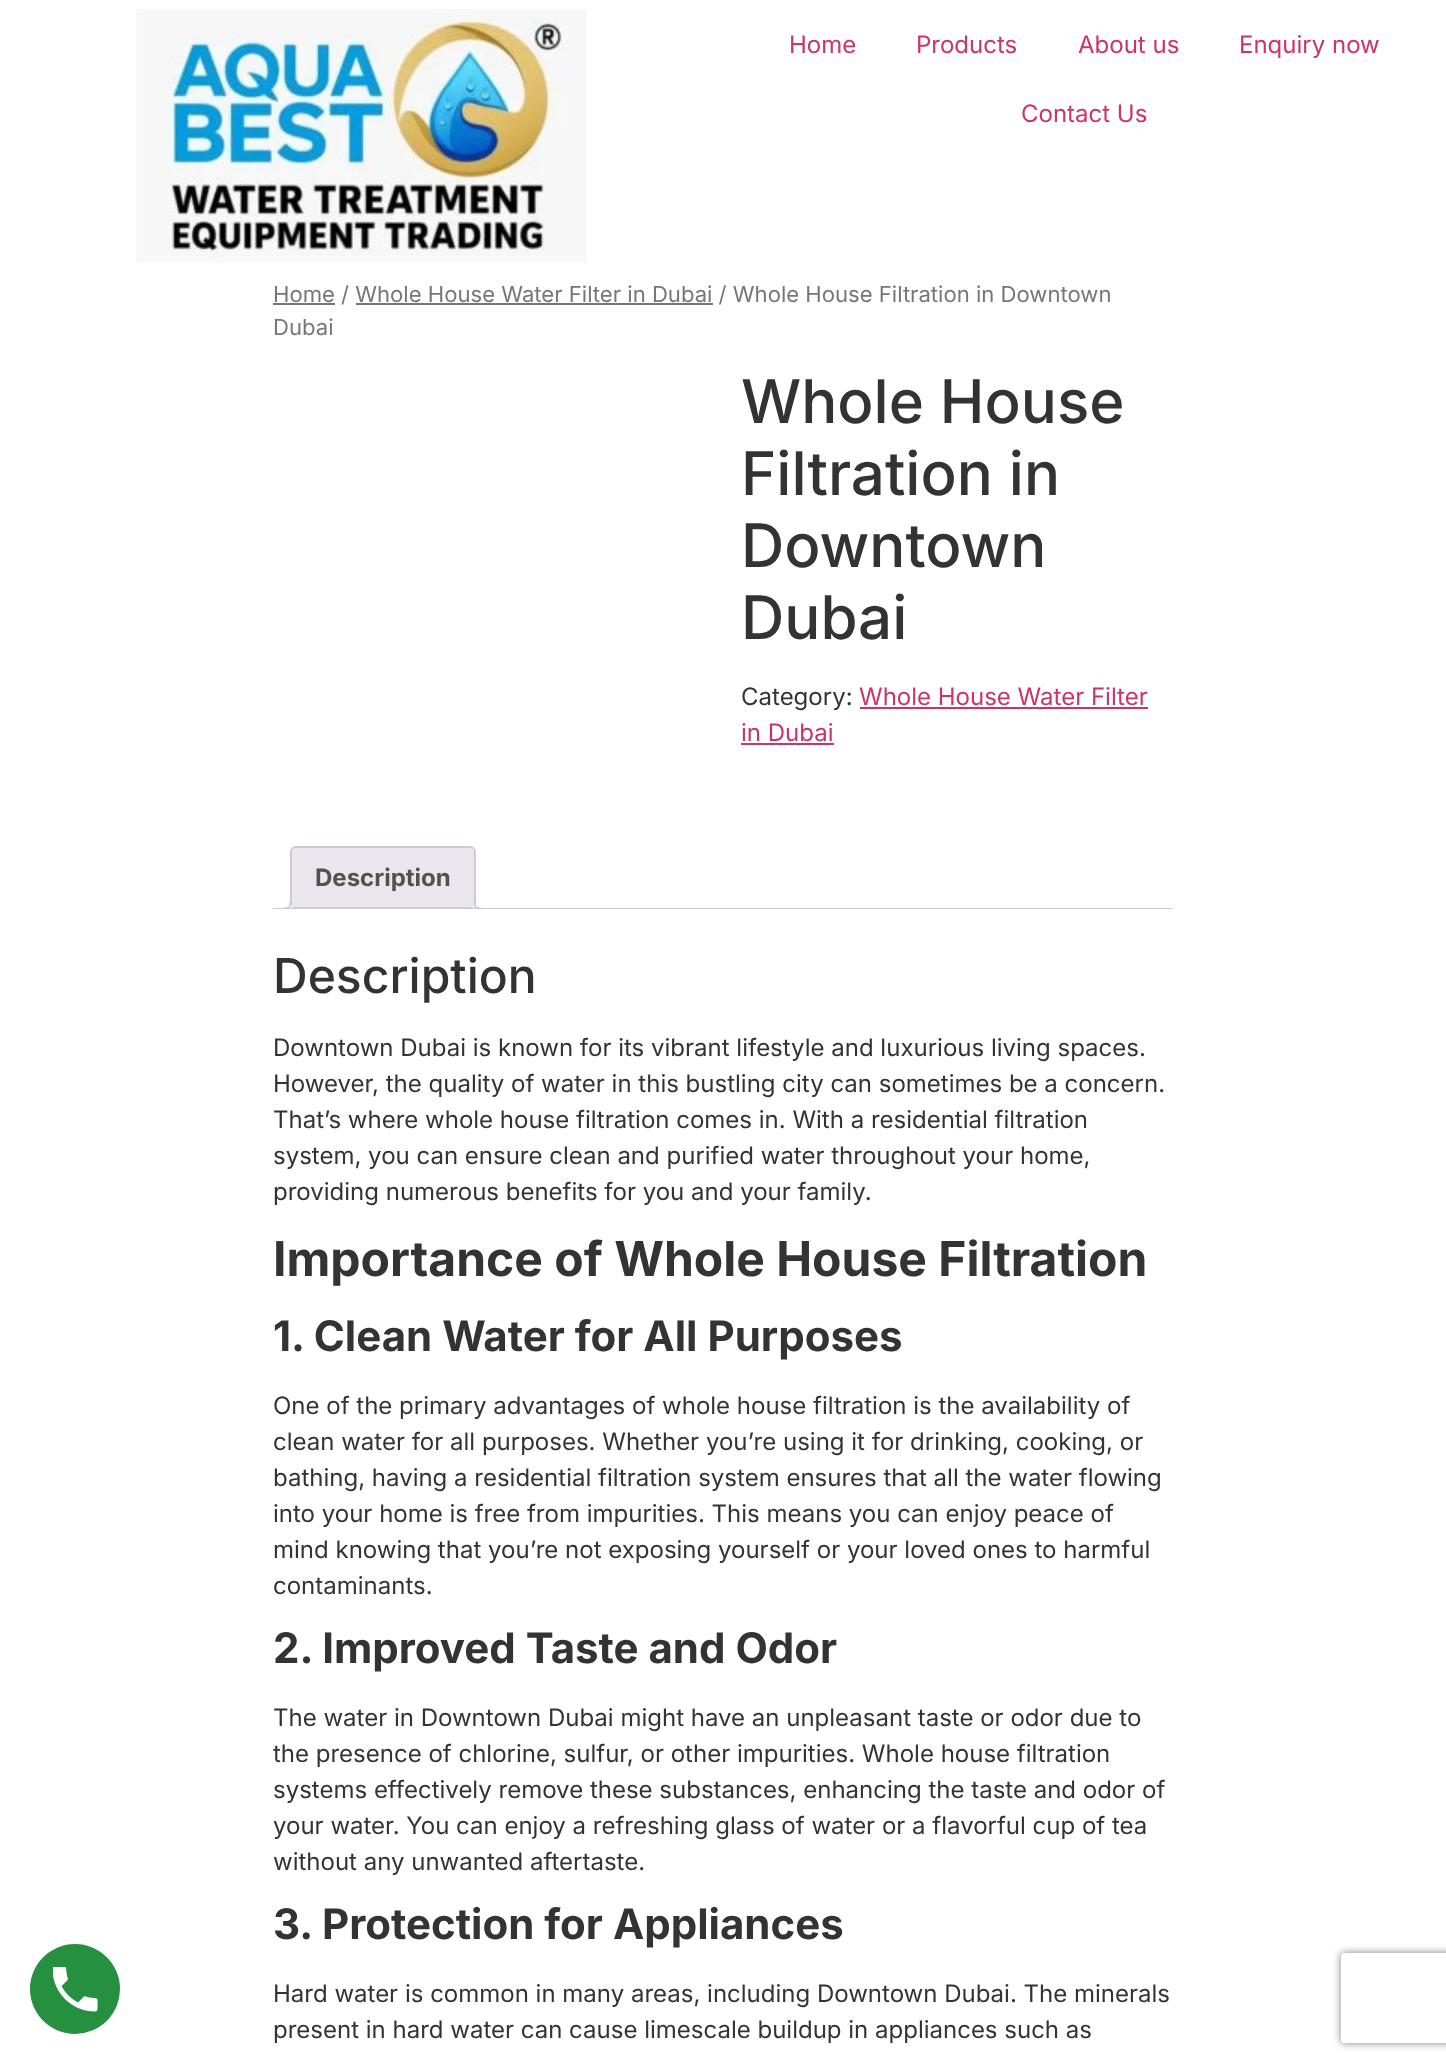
async function draw(canvas) {
  canvas.width = 1446;
  canvas.height = 2064;
  const ctx = canvas.getContext('2d');
  ctx.miterLimit = 4;
  ctx.fontKerning = 'normal';
  function label(s, x, y, font, color) {
    ctx.font = font;
    ctx.fillStyle = color;
    ctx.fillText(s, x, y);
  }
  function rect(x, y, w, h, color) {
    ctx.fillStyle = color;
    ctx.fillRect(x, y, w, h);
  }
  async function image(src, x, y, w, h) {
    const img = new Image();
    img.src = src;
    await img.decode();
    ctx.drawImage(img, x, y, w, h);
  }
  let path;

  rect(0, 0, 1446, 2064, '#fff');
  ctx.fillStyle = '#269041';
  ctx.beginPath();
  ctx.arc(75, 1989, 45, 0, 2 * Math.PI);
  ctx.fill();
  await image('assets/img1.png', 53, 1967, 45, 45);
  await image('assets/img2.png', 136, 9, 451, 254);
  label('Home', 789, 53, '24px Inter', '#c36');
  label('Products', 916, 53, '24px Inter', '#c36');
  label('About us', 1078, 53, '24px Inter', '#c36');
  label('Enquiry now', 1239, 53, '24px Inter', '#c36');
  label('Contact Us', 1021, 122, '24px Inter', '#c36');
  rect(273, 303, 62, 2, '#767676');
  label('Home / Whole House Water Filter in Dubai / Whole House Filtration in Downtown', 273, 302, '22.1px Inter', '#767676');
  rect(356, 303, 357, 2, '#767676');
  label('Dubai', 273, 335, '22.1px Inter', '#767676');
  label('Whole House', 741, 423, '500 60px Inter', '#333');
  label('Filtration in', 741, 495, '500 60px Inter', '#333');
  label('Downtown', 741, 567, '500 60px Inter', '#333');
  label('Dubai', 741, 639, '500 60px Inter', '#333');
  label('Category:', 741, 705, '24px Inter', '#333');
  label('Whole House Water Filter', 859, 705, '24px Inter', '#c36');
  rect(860, 707, 288, 2, '#c36');
  label('in Dubai', 741, 741, '24px Inter', '#c36');
  rect(741, 743, 93, 2, '#c36');
  ctx.fillStyle = '#e9e6ed';
  ctx.beginPath();
  ctx.roundRect(291, 847, 184, 61, [5, 5, 0, 0]);
  ctx.fill();
  ctx.strokeStyle = '#cfc8d8';
  ctx.lineWidth = 2;
  ctx.stroke();
  label('Description', 315, 886, 'bold 24px Inter', '#515151');
  ctx.save();
  ctx.beginPath();
  ctx.rect(273, 846, 900, 63);
  ctx.clip();
  ctx.fillStyle = '#e9e6ed';
  path = new Path2D('M287 908.5V912C291.5 912 294 909.5 294 905H290.5C290 906.5 288.5 908 287 908.5Z');
  ctx.fill(path);
  ctx.restore();
  ctx.fillStyle = '#cfc8d8';
  path = new Path2D('M283.5 901.5H291C291 907 289 909 283.5 909ZM283.5 901.5H289.5C289.5 906 288 907.5 283.5 907.5Z');
  ctx.fill(path, 'evenodd');
  ctx.save();
  ctx.beginPath();
  ctx.rect(273, 846, 900, 63);
  ctx.clip();
  ctx.fillStyle = '#e9e6ed';
  path = new Path2D('M471 905C471 910.5 474 912 479 912V909C477 908.5 475 907 474.5 905Z');
  ctx.fill(path);
  ctx.restore();
  path = new Path2D('M474 901.5H481.5V909C477.5 909 474 907.5 474 903ZM475.5 901.5H481.5V907.5C478.5 907.5 475.5 906.5 475.5 903Z');
  ctx.fill(path, 'evenodd');
  rect(273, 908, 900, 1, '#cfc8d8');
  label('Description', 273, 993, '500 48px Inter', '#333');
  label('Downtown Dubai is known for its vibrant lifestyle and luxurious living spaces.', 273, 1056, '24px Inter', '#333');
  label('However, the quality of water in this bustling city can sometimes be a concern.', 273, 1092, '24px Inter', '#333');
  label('That’s where whole house filtration comes in. With a residential filtration', 273, 1128, '24px Inter', '#333');
  label('system, you can ensure clean and purified water throughout your home,', 273, 1164, '24px Inter', '#333');
  label('providing numerous benefits for you and your family.', 273, 1200, '24px Inter', '#333');
  label('Importance of Whole House Filtration', 273, 1276, 'bold 48px Inter', '#333');
  label('1. Clean Water for All Purposes', 273, 1351, 'bold 42px Inter', '#333');
  label('One of the primary advantages of whole house filtration is the availability of', 273, 1414, '24px Inter', '#333');
  label('clean water for all purposes. Whether you’re using it for drinking, cooking, or', 273, 1450, '24px Inter', '#333');
  label('bathing, having a residential filtration system ensures that all the water flowing', 273, 1486, '24px Inter', '#333');
  label('into your home is free from impurities. This means you can enjoy peace of', 273, 1522, '24px Inter', '#333');
  label('mind knowing that you’re not exposing yourself or your loved ones to harmful', 273, 1558, '24px Inter', '#333');
  label('contaminants.', 273, 1594, '24px Inter', '#333');
  label('2. Improved Taste and Odor', 273, 1663, 'bold 42px Inter', '#333');
  label('The water in Downtown Dubai might have an unpleasant taste or odor due to', 273, 1726, '24px Inter', '#333');
  label('the presence of chlorine, sulfur, or other impurities. Whole house filtration', 273, 1762, '24px Inter', '#333');
  label('systems effectively remove these substances, enhancing the taste and odor of', 273, 1798, '24px Inter', '#333');
  label('your water. You can enjoy a refreshing glass of water or a flavorful cup of tea', 273, 1834, '24px Inter', '#333');
  label('without any unwanted aftertaste.', 273, 1870, '24px Inter', '#333');
  label('3. Protection for Appliances', 273, 1939, 'bold 42px Inter', '#333');
  label('Hard water is common in many areas, including Downtown Dubai. The minerals', 273, 2002, '24px Inter', '#333');
  label('present in hard water can cause limescale buildup in appliances such as', 273, 2038, '24px Inter', '#333');
  ctx.save();
  path = new Path2D('M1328 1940H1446V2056H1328ZM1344 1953H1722C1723.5 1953 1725 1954.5 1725 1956V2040C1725 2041.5 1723.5 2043 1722 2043H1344C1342.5 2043 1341 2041.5 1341 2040V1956C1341 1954.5 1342.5 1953 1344 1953Z');
  ctx.clip(path, 'evenodd');
  ctx.fillStyle = '#808080';
  ctx.filter = 'blur(4px)';
  ctx.beginPath();
  ctx.roundRect(1341, 1953, 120, 90, 3);
  ctx.fill();
  ctx.filter = 'none';
  ctx.restore();
}

draw(document.querySelector('canvas'));
